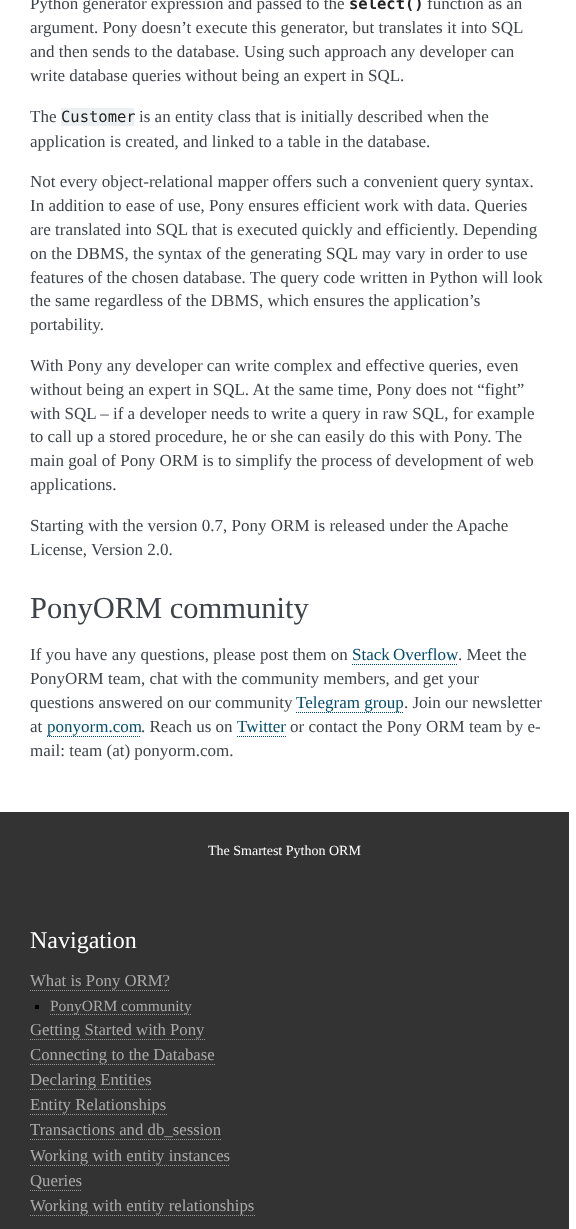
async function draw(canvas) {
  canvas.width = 576;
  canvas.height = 1229;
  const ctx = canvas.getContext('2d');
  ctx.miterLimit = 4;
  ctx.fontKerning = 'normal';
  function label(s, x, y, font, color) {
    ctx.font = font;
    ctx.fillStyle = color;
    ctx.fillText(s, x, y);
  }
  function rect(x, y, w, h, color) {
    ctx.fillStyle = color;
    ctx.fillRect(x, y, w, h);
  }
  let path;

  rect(0, 0, 576, 1229, '#fff');
  label('Python generator expression and passed to the', 30, 9, '17px Liberation Serif', '#3e4349');
  label('select()', 349, 9, 'bold 15.5px DejaVu Sans Mono', '#222');
  label('function as an', 427, 9, '17px Liberation Serif', '#3e4349');
  label('argument. Pony doesn’t execute this generator, but translates it into SQL', 30, 33, '17px Liberation Serif', '#3e4349');
  label('and then sends to the database. Using such approach any developer can', 30, 57, '17px Liberation Serif', '#3e4349');
  label('write database queries without being an expert in SQL.', 30, 81, '17px Liberation Serif', '#3e4349');
  label('The', 30, 122, '17px Liberation Serif', '#3e4349');
  rect(61, 108, 73, 18, '#ecf0f3');
  label('Customer', 61, 122, '15.5px DejaVu Sans Mono', '#222');
  label('is an entity class that is initially described when the', 139, 122, '17px Liberation Serif', '#3e4349');
  label('application is created, and linked to a table in the database.', 30, 147, '17px Liberation Serif', '#3e4349');
  label('Not every object-relational mapper offers such a convenient query syntax.', 30, 187, '17px Liberation Serif', '#3e4349');
  label('In addition to ease of use, Pony ensures efficient work with data. Queries', 30, 211, '17px Liberation Serif', '#3e4349');
  label('are translated into SQL that is executed quickly and efficiently. Depending', 30, 235, '17px Liberation Serif', '#3e4349');
  label('on the DBMS, the syntax of the generating SQL may vary in order to use', 30, 259, '17px Liberation Serif', '#3e4349');
  label('features of the chosen database. The query code written in Python will look', 30, 283, '17px Liberation Serif', '#3e4349');
  label('the same regardless of the DBMS, which ensures the application’s', 30, 306, '17px Liberation Serif', '#3e4349');
  label('portability.', 30, 330, '17px Liberation Serif', '#3e4349');
  label('With Pony any developer can write complex and effective queries, even', 30, 371, '17px Liberation Serif', '#3e4349');
  label('without being an expert in SQL. At the same time, Pony does not “fight”', 30, 395, '17px Liberation Serif', '#3e4349');
  label('with SQL – if a developer needs to write a query in raw SQL, for example', 30, 419, '17px Liberation Serif', '#3e4349');
  label('to call up a stored procedure, he or she can easily do this with Pony. The', 30, 442, '17px Liberation Serif', '#3e4349');
  label('main goal of Pony ORM is to simplify the process of development of web', 30, 466, '17px Liberation Serif', '#3e4349');
  label('applications.', 30, 490, '17px Liberation Serif', '#3e4349');
  label('Starting with the version 0.7, Pony ORM is released under the Apache', 30, 531, '17px Liberation Serif', '#3e4349');
  label('License, Version 2.0.', 30, 555, '17px Liberation Serif', '#3e4349');
  label('PonyORM community', 30, 618, '30.5px Liberation Serif', '#3e4349');
  label('If you have any questions, please post them on', 30, 660, '17px Liberation Serif', '#3e4349');
  ctx.wordSpacing = '-1px';
  label('Stack Overflow', 352, 660, '17px Liberation Serif', '#004b6b');
  path = new Path2D('M352 664.5H458');
  ctx.strokeStyle = '#004b6b';
  ctx.setLineDash([1, 1]);
  ctx.stroke(path);
  ctx.wordSpacing = '0px';
  label('. Meet the', 458, 660, '17px Liberation Serif', '#3e4349');
  label('PonyORM team, chat with the community members, and get your', 30, 684, '17px Liberation Serif', '#3e4349');
  label('questions answered on our community', 30, 708, '17px Liberation Serif', '#3e4349');
  label('Telegram group', 296, 708, '17px Liberation Serif', '#004b6b');
  path = new Path2D('M296 712.5H404');
  ctx.stroke(path);
  label('. Join our newsletter', 404, 708, '17px Liberation Serif', '#3e4349');
  label('at', 30, 732, '17px Liberation Serif', '#3e4349');
  label('ponyorm.com', 47, 732, '17px Liberation Serif', '#004b6b');
  path = new Path2D('M47 736.5H141');
  ctx.stroke(path);
  label('. Reach us on', 141, 732, '17px Liberation Serif', '#3e4349');
  label('Twitter', 237, 732, '17px Liberation Serif', '#004b6b');
  path = new Path2D('M237 736.5H286');
  ctx.stroke(path);
  label('or contact the Pony ORM team by e-', 290, 732, '17px Liberation Serif', '#3e4349');
  label('mail: team (at) ponyorm.com.', 30, 756, '17px Liberation Serif', '#3e4349');
  rect(0, 812, 569, 417, '#333');
  label('The Smartest Python ORM', 208, 855, '14px Liberation Serif', '#fff');
  label('Navigation', 30, 948, '24px Liberation Serif', '#fff');
  label('What is Pony ORM?', 30, 986, '16.75px Liberation Serif', '#aaa');
  path = new Path2D('M30 990.5H170');
  ctx.strokeStyle = '#999';
  ctx.stroke(path);
  rect(35, 1005, 4, 4, '#000');
  path = new Path2D('M50 1014.5H191');
  ctx.stroke(path);
  label('PonyORM community', 50, 1011, '15.5px Liberation Serif', '#aaa');
  label('Getting Started with Pony', 30, 1035, '16.75px Liberation Serif', '#aaa');
  path = new Path2D('M30 1039.5H205');
  ctx.stroke(path);
  label('Connecting to the Database', 30, 1060, '16.75px Liberation Serif', '#aaa');
  path = new Path2D('M30 1064.5H215');
  ctx.stroke(path);
  label('Declaring Entities', 30, 1085, '16.75px Liberation Serif', '#aaa');
  path = new Path2D('M30 1089.5H152');
  ctx.stroke(path);
  label('Entity Relationships', 30, 1110, '16.75px Liberation Serif', '#aaa');
  path = new Path2D('M30 1114.5H167');
  ctx.stroke(path);
  label('Transactions and db_session', 30, 1135, '16.75px Liberation Serif', '#aaa');
  path = new Path2D('M30 1139.5H221');
  ctx.stroke(path);
  label('Working with entity instances', 30, 1161, '16.75px Liberation Serif', '#aaa');
  path = new Path2D('M30 1165.5H230');
  ctx.stroke(path);
  label('Queries', 30, 1186, '16.75px Liberation Serif', '#aaa');
  path = new Path2D('M30 1190.5H82');
  ctx.stroke(path);
  label('Working with entity relationships', 30, 1211, '16.75px Liberation Serif', '#aaa');
  path = new Path2D('M30 1215.5H255');
  ctx.stroke(path);
}

draw(document.querySelector('canvas'));
